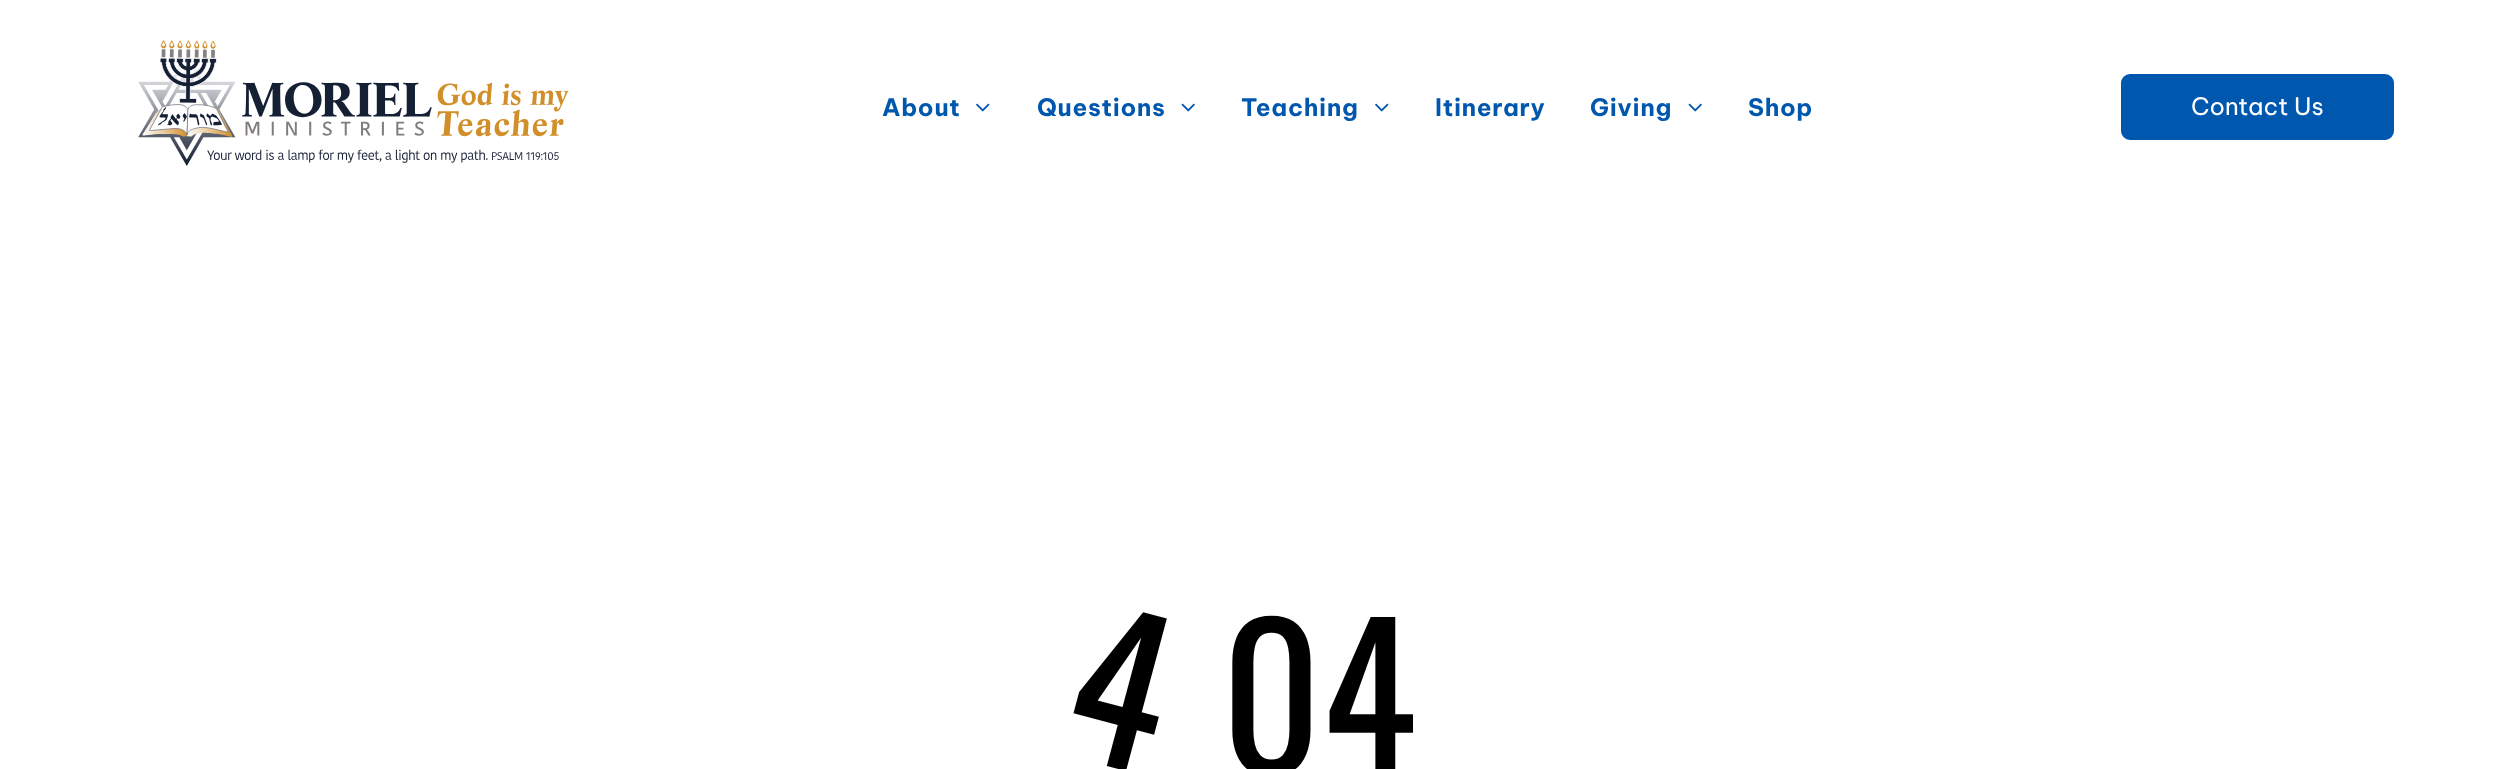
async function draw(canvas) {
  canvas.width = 2497;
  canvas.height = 769;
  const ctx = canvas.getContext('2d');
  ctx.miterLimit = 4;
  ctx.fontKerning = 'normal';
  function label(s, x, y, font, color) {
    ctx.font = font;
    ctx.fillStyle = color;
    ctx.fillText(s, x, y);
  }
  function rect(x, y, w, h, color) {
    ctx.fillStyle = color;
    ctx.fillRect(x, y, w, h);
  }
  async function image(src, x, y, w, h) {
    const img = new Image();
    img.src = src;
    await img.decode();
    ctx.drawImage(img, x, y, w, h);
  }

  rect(0, 0, 2497, 769, '#fff');
  await image('assets/img1.png', 138, 39, 431, 127);
  ctx.letterSpacing = '0.75px';
  label('About', 882, 116, 'bold 24px Be Vietnam Pro', '#0057ae');
  await image('assets/img2.png', 976, 103, 14, 9);
  label('Questions', 1037, 116, 'bold 24px Be Vietnam Pro', '#0057ae');
  await image('assets/img3.png', 1181, 103, 14, 9);
  label('Teaching', 1241, 116, 'bold 24px Be Vietnam Pro', '#0057ae');
  await image('assets/img2.png', 1375, 103, 14, 9);
  label('Itinerary', 1435, 116, 'bold 24px Be Vietnam Pro', '#0057ae');
  label('Giving', 1590, 116, 'bold 24px Be Vietnam Pro', '#0057ae');
  await image('assets/img3.png', 1688, 103, 14, 9);
  label('Shop', 1748, 116, 'bold 24px Be Vietnam Pro', '#0057ae');
  ctx.beginPath();
  ctx.roundRect(2122, 75, 271, 64, 8);
  ctx.fill();
  ctx.strokeStyle = '#0057ae';
  ctx.lineWidth = 2;
  ctx.stroke();
  ctx.letterSpacing = '0px';
  label('Contact Us', 2191, 115, '24px Be Vietnam Pro', '#fff');
  ctx.font = '195px Oswald';
  ctx.fillStyle = '#000';
  ctx.save();
  ctx.translate(1055, 752);
  ctx.rotate(15 * Math.PI / 180);
  ctx.fillText('4', 0, 0);
  ctx.restore();
  label('04', 1221, 775, '195px Oswald', '#000');
}

draw(document.querySelector('canvas'));
